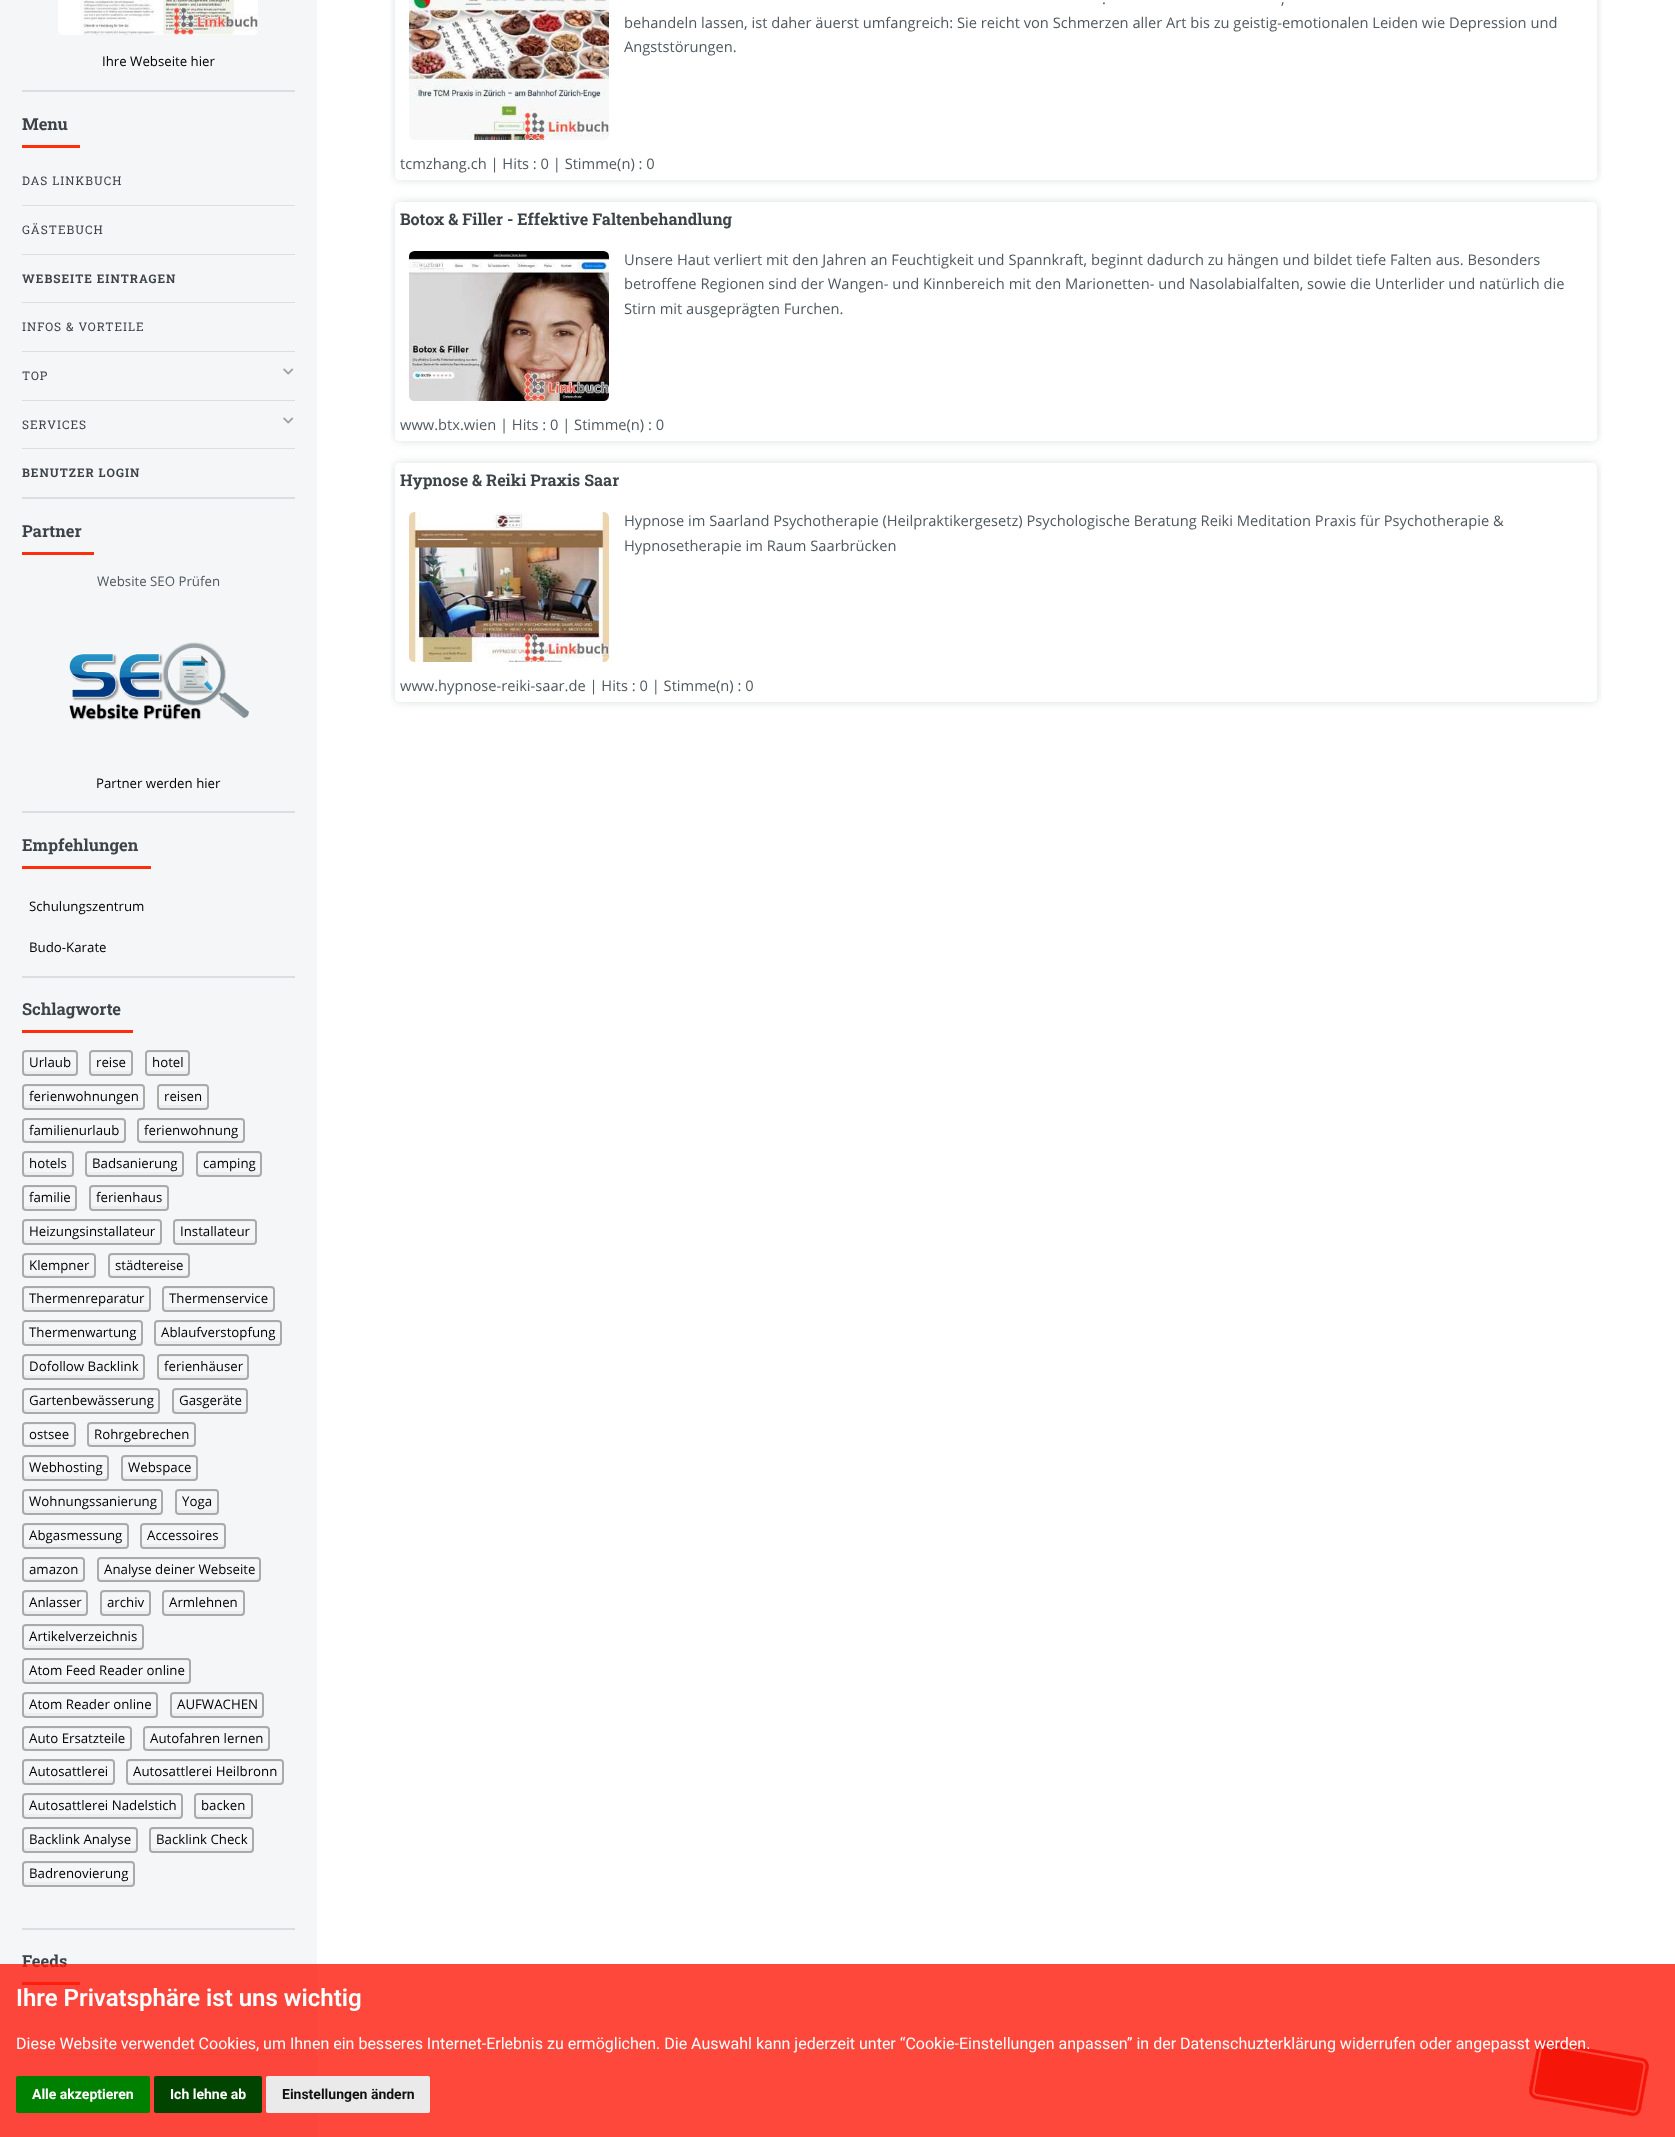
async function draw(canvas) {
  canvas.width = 1675;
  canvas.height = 2137;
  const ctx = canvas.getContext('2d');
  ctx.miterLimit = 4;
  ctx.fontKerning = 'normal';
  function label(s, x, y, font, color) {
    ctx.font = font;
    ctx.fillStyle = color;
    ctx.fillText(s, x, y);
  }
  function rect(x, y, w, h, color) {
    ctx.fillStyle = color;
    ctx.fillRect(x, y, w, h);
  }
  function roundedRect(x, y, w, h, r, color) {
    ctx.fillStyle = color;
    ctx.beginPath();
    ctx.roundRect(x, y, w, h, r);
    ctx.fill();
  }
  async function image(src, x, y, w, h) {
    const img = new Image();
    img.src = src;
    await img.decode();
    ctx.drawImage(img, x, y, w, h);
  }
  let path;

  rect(0, 0, 1675, 2137, '#fff');
  rect(0, 0, 317, 2137, '#f5f6f7');
  rect(22, 90, 273, 2, '#dbdfe1');
  await image('assets/img1.png', 58, 0, 200, 35);
  label('Ihre Webseite hier', 102, 66, '13.25px Open Sans', '#000');
  rect(22, 497, 273, 2, '#dbdfe1');
  rect(22, 145, 58, 3, '#ff2e0b');
  label('Menu', 22, 130, 'bold 16.5px Roboto Slab', '#3d4449');
  ctx.letterSpacing = '1px';
  label('DAS LINKBUCH', 22, 185, '11.9px Roboto Slab', '#3d4449');
  rect(22, 205, 273, 1, '#dbdfe1');
  label('GÄSTEBUCH', 22, 234, '11.9px Roboto Slab', '#3d4449');
  rect(22, 254, 273, 1, '#dbdfe1');
  label('WEBSEITE EINTRAGEN', 22, 283, 'bold 11.9px Roboto Slab', '#3d4449');
  rect(22, 302, 273, 1, '#dbdfe1');
  label('INFOS & VORTEILE', 22, 331, '11.9px Roboto Slab', '#3d4449');
  rect(22, 351, 273, 1, '#dbdfe1');
  label('TOP', 22, 380, '11.9px Roboto Slab', '#3d4449');
  await image('assets/img2.png', 283, 368, 11, 7);
  rect(22, 400, 273, 1, '#dbdfe1');
  label('SERVICES', 22, 429, '11.9px Roboto Slab', '#3d4449');
  await image('assets/img2.png', 283, 417, 11, 7);
  rect(22, 448, 273, 1, '#dbdfe1');
  label('BENUTZER LOGIN', 22, 477, 'bold 11.9px Roboto Slab', '#3d4449');
  rect(22, 811, 273, 2, '#dbdfe1');
  rect(22, 552, 72, 3, '#ff2e0b');
  ctx.letterSpacing = '0px';
  label('Partner', 22, 537, 'bold 16.5px Roboto Slab', '#3d4449');
  label('Website SEO Prüfen', 97, 586, '13.25px Open Sans', '#505960');
  await image('assets/img3.png', 69, 642, 180, 78);
  label('Partner werden hier', 96, 788, '13.25px Open Sans', '#000');
  rect(22, 976, 273, 2, '#dbdfe1');
  rect(22, 866, 129, 3, '#ff2e0b');
  label('Empfehlungen', 22, 851, 'bold 16.5px Roboto Slab', '#3d4449');
  label('Schulungszentrum', 29, 911, '13.25px Open Sans', '#000');
  label('Budo-Karate', 29, 952, '13.25px Open Sans', '#000');
  rect(22, 1928, 273, 2, '#dbdfe1');
  rect(22, 1030, 111, 3, '#ff2e0b');
  label('Schlagworte', 22, 1015, 'bold 16.5px Roboto Slab', '#3d4449');
  ctx.fillStyle = '#eee';
  ctx.beginPath();
  ctx.roundRect(23, 1051, 54, 24, 3);
  ctx.fill();
  ctx.strokeStyle = '#aaa';
  ctx.lineWidth = 2;
  ctx.stroke();
  rect(24, 1053, 52, 18, '#f5f6f7');
  label('Urlaub', 29, 1067, '13.25px Open Sans', '#000');
  ctx.fillStyle = '#eee';
  ctx.beginPath();
  ctx.roundRect(90, 1051, 42, 24, 3);
  ctx.fill();
  ctx.stroke();
  rect(91, 1053, 40, 18, '#f5f6f7');
  label('reise', 96, 1067, '13.25px Open Sans', '#000');
  ctx.fillStyle = '#eee';
  ctx.beginPath();
  ctx.roundRect(146, 1051, 43, 24, 3);
  ctx.fill();
  ctx.stroke();
  rect(147, 1053, 41, 18, '#f5f6f7');
  label('hotel', 152, 1067, '13.25px Open Sans', '#000');
  ctx.fillStyle = '#eee';
  ctx.beginPath();
  ctx.roundRect(23, 1085, 121, 24, 3);
  ctx.fill();
  ctx.stroke();
  rect(24, 1087, 119, 18, '#f5f6f7');
  label('ferienwohnungen', 29, 1101, '13.25px Open Sans', '#000');
  ctx.fillStyle = '#eee';
  ctx.beginPath();
  ctx.roundRect(158, 1085, 50, 24, 3);
  ctx.fill();
  ctx.stroke();
  rect(159, 1087, 48, 18, '#f5f6f7');
  label('reisen', 164, 1101, '13.25px Open Sans', '#000');
  ctx.fillStyle = '#eee';
  ctx.beginPath();
  ctx.roundRect(23, 1119, 102, 23, 3);
  ctx.fill();
  ctx.stroke();
  rect(24, 1121, 100, 18, '#f5f6f7');
  label('familienurlaub', 29, 1135, '13.25px Open Sans', '#000');
  ctx.fillStyle = '#eee';
  ctx.beginPath();
  ctx.roundRect(138, 1119, 106, 23, 3);
  ctx.fill();
  ctx.stroke();
  rect(139, 1121, 104, 18, '#f5f6f7');
  label('ferienwohnung', 144, 1135, '13.25px Open Sans', '#000');
  ctx.fillStyle = '#eee';
  ctx.beginPath();
  ctx.roundRect(23, 1152, 50, 24, 3);
  ctx.fill();
  ctx.stroke();
  rect(24, 1154, 48, 18, '#f5f6f7');
  label('hotels', 29, 1168, '13.25px Open Sans', '#000');
  ctx.fillStyle = '#eee';
  ctx.beginPath();
  ctx.roundRect(86, 1152, 97, 24, 3);
  ctx.fill();
  ctx.stroke();
  rect(87, 1154, 95, 18, '#f5f6f7');
  label('Badsanierung', 92, 1168, '13.25px Open Sans', '#000');
  ctx.fillStyle = '#eee';
  ctx.beginPath();
  ctx.roundRect(197, 1152, 64, 24, 3);
  ctx.fill();
  ctx.stroke();
  rect(198, 1154, 62, 18, '#f5f6f7');
  label('camping', 203, 1168, '13.25px Open Sans', '#000');
  ctx.fillStyle = '#eee';
  ctx.beginPath();
  ctx.roundRect(23, 1186, 53, 24, 3);
  ctx.fill();
  ctx.stroke();
  rect(24, 1188, 51, 18, '#f5f6f7');
  label('familie', 29, 1202, '13.25px Open Sans', '#000');
  ctx.fillStyle = '#eee';
  ctx.beginPath();
  ctx.roundRect(90, 1186, 78, 24, 3);
  ctx.fill();
  ctx.stroke();
  rect(91, 1188, 76, 18, '#f5f6f7');
  label('ferienhaus', 96, 1202, '13.25px Open Sans', '#000');
  ctx.fillStyle = '#eee';
  ctx.beginPath();
  ctx.roundRect(23, 1220, 138, 24, 3);
  ctx.fill();
  ctx.stroke();
  rect(24, 1222, 136, 18, '#f5f6f7');
  label('Heizungsinstallateur', 29, 1236, '13.25px Open Sans', '#000');
  ctx.fillStyle = '#eee';
  ctx.beginPath();
  ctx.roundRect(174, 1220, 82, 24, 3);
  ctx.fill();
  ctx.stroke();
  rect(175, 1222, 80, 18, '#f5f6f7');
  label('Installateur', 180, 1236, '13.25px Open Sans', '#000');
  ctx.fillStyle = '#eee';
  ctx.beginPath();
  ctx.roundRect(23, 1254, 72, 23, 3);
  ctx.fill();
  ctx.stroke();
  rect(24, 1256, 70, 18, '#f5f6f7');
  label('Klempner', 29, 1270, '13.25px Open Sans', '#000');
  ctx.fillStyle = '#eee';
  ctx.beginPath();
  ctx.roundRect(109, 1254, 80, 23, 3);
  ctx.fill();
  ctx.stroke();
  rect(110, 1256, 78, 18, '#f5f6f7');
  label('städtereise', 115, 1270, '13.25px Open Sans', '#000');
  ctx.fillStyle = '#eee';
  ctx.beginPath();
  ctx.roundRect(23, 1287, 127, 24, 3);
  ctx.fill();
  ctx.stroke();
  rect(24, 1289, 125, 18, '#f5f6f7');
  label('Thermenreparatur', 29, 1303, '13.25px Open Sans', '#000');
  ctx.fillStyle = '#eee';
  ctx.beginPath();
  ctx.roundRect(163, 1287, 111, 24, 3);
  ctx.fill();
  ctx.stroke();
  rect(164, 1289, 109, 18, '#f5f6f7');
  label('Thermenservice', 169, 1303, '13.25px Open Sans', '#000');
  ctx.fillStyle = '#eee';
  ctx.beginPath();
  ctx.roundRect(23, 1321, 119, 24, 3);
  ctx.fill();
  ctx.stroke();
  rect(24, 1323, 117, 18, '#f5f6f7');
  label('Thermenwartung', 29, 1337, '13.25px Open Sans', '#000');
  ctx.fillStyle = '#eee';
  ctx.beginPath();
  ctx.roundRect(155, 1321, 126, 24, 3);
  ctx.fill();
  ctx.stroke();
  rect(156, 1323, 124, 18, '#f5f6f7');
  label('Ablaufverstopfung', 161, 1337, '13.25px Open Sans', '#000');
  ctx.fillStyle = '#eee';
  ctx.beginPath();
  ctx.roundRect(23, 1355, 121, 24, 3);
  ctx.fill();
  ctx.stroke();
  rect(24, 1357, 119, 18, '#f5f6f7');
  label('Dofollow Backlink', 29, 1371, '13.25px Open Sans', '#000');
  ctx.fillStyle = '#eee';
  ctx.beginPath();
  ctx.roundRect(158, 1355, 90, 24, 3);
  ctx.fill();
  ctx.stroke();
  rect(159, 1357, 88, 18, '#f5f6f7');
  label('ferienhäuser', 164, 1371, '13.25px Open Sans', '#000');
  ctx.fillStyle = '#eee';
  ctx.beginPath();
  ctx.roundRect(23, 1389, 136, 24, 3);
  ctx.fill();
  ctx.stroke();
  rect(24, 1391, 134, 18, '#f5f6f7');
  label('Gartenbewässerung', 29, 1405, '13.25px Open Sans', '#000');
  ctx.fillStyle = '#eee';
  ctx.beginPath();
  ctx.roundRect(173, 1389, 74, 24, 3);
  ctx.fill();
  ctx.stroke();
  rect(174, 1391, 72, 18, '#f5f6f7');
  label('Gasgeräte', 179, 1405, '13.25px Open Sans', '#000');
  ctx.fillStyle = '#eee';
  ctx.beginPath();
  ctx.roundRect(23, 1423, 52, 23, 3);
  ctx.fill();
  ctx.stroke();
  rect(24, 1425, 50, 18, '#f5f6f7');
  label('ostsee', 29, 1439, '13.25px Open Sans', '#000');
  ctx.fillStyle = '#eee';
  ctx.beginPath();
  ctx.roundRect(88, 1423, 107, 23, 3);
  ctx.fill();
  ctx.stroke();
  rect(89, 1425, 105, 18, '#f5f6f7');
  label('Rohrgebrechen', 94, 1439, '13.25px Open Sans', '#000');
  ctx.fillStyle = '#eee';
  ctx.beginPath();
  ctx.roundRect(23, 1456, 85, 24, 3);
  ctx.fill();
  ctx.stroke();
  rect(24, 1458, 83, 18, '#f5f6f7');
  label('Webhosting', 29, 1472, '13.25px Open Sans', '#000');
  ctx.fillStyle = '#eee';
  ctx.beginPath();
  ctx.roundRect(122, 1456, 75, 24, 3);
  ctx.fill();
  ctx.stroke();
  rect(123, 1458, 73, 18, '#f5f6f7');
  label('Webspace', 128, 1472, '13.25px Open Sans', '#000');
  ctx.fillStyle = '#eee';
  ctx.beginPath();
  ctx.roundRect(23, 1490, 139, 24, 3);
  ctx.fill();
  ctx.stroke();
  rect(24, 1492, 137, 18, '#f5f6f7');
  label('Wohnungssanierung', 29, 1506, '13.25px Open Sans', '#000');
  ctx.fillStyle = '#eee';
  ctx.beginPath();
  ctx.roundRect(176, 1490, 42, 24, 3);
  ctx.fill();
  ctx.stroke();
  rect(177, 1492, 40, 18, '#f5f6f7');
  label('Yoga', 182, 1506, '13.25px Open Sans', '#000');
  ctx.fillStyle = '#eee';
  ctx.beginPath();
  ctx.roundRect(23, 1524, 105, 24, 3);
  ctx.fill();
  ctx.stroke();
  rect(24, 1526, 103, 18, '#f5f6f7');
  label('Abgasmessung', 29, 1540, '13.25px Open Sans', '#000');
  ctx.fillStyle = '#eee';
  ctx.beginPath();
  ctx.roundRect(141, 1524, 84, 24, 3);
  ctx.fill();
  ctx.stroke();
  rect(142, 1526, 82, 18, '#f5f6f7');
  label('Accessoires', 147, 1540, '13.25px Open Sans', '#000');
  ctx.fillStyle = '#eee';
  ctx.beginPath();
  ctx.roundRect(23, 1558, 61, 23, 3);
  ctx.fill();
  ctx.stroke();
  rect(24, 1560, 59, 18, '#f5f6f7');
  label('amazon', 29, 1574, '13.25px Open Sans', '#000');
  ctx.fillStyle = '#eee';
  ctx.beginPath();
  ctx.roundRect(98, 1558, 162, 23, 3);
  ctx.fill();
  ctx.stroke();
  rect(99, 1560, 160, 18, '#f5f6f7');
  label('Analyse deiner Webseite', 104, 1574, '13.25px Open Sans', '#000');
  ctx.fillStyle = '#eee';
  ctx.beginPath();
  ctx.roundRect(23, 1591, 64, 24, 3);
  ctx.fill();
  ctx.stroke();
  rect(24, 1593, 62, 18, '#f5f6f7');
  label('Anlasser', 29, 1607, '13.25px Open Sans', '#000');
  ctx.fillStyle = '#eee';
  ctx.beginPath();
  ctx.roundRect(101, 1591, 49, 24, 3);
  ctx.fill();
  ctx.stroke();
  rect(102, 1593, 47, 18, '#f5f6f7');
  label('archiv', 107, 1607, '13.25px Open Sans', '#000');
  ctx.fillStyle = '#eee';
  ctx.beginPath();
  ctx.roundRect(163, 1591, 81, 24, 3);
  ctx.fill();
  ctx.stroke();
  rect(164, 1593, 79, 18, '#f5f6f7');
  label('Armlehnen', 169, 1607, '13.25px Open Sans', '#000');
  ctx.fillStyle = '#eee';
  ctx.beginPath();
  ctx.roundRect(23, 1625, 120, 24, 3);
  ctx.fill();
  ctx.stroke();
  rect(24, 1627, 118, 18, '#f5f6f7');
  label('Artikelverzeichnis', 29, 1641, '13.25px Open Sans', '#000');
  ctx.fillStyle = '#eee';
  ctx.beginPath();
  ctx.roundRect(23, 1659, 167, 24, 3);
  ctx.fill();
  ctx.stroke();
  rect(24, 1661, 165, 18, '#f5f6f7');
  label('Atom Feed Reader online', 29, 1675, '13.25px Open Sans', '#000');
  ctx.fillStyle = '#eee';
  ctx.beginPath();
  ctx.roundRect(23, 1693, 134, 24, 3);
  ctx.fill();
  ctx.stroke();
  rect(24, 1695, 132, 18, '#f5f6f7');
  label('Atom Reader online', 29, 1709, '13.25px Open Sans', '#000');
  ctx.fillStyle = '#eee';
  ctx.beginPath();
  ctx.roundRect(171, 1693, 92, 24, 3);
  ctx.fill();
  ctx.stroke();
  rect(172, 1695, 90, 18, '#f5f6f7');
  label('AUFWACHEN', 177, 1709, '13.25px Open Sans', '#000');
  ctx.fillStyle = '#eee';
  ctx.beginPath();
  ctx.roundRect(23, 1727, 108, 23, 3);
  ctx.fill();
  ctx.stroke();
  rect(24, 1729, 106, 18, '#f5f6f7');
  label('Auto Ersatzteile', 29, 1743, '13.25px Open Sans', '#000');
  ctx.fillStyle = '#eee';
  ctx.beginPath();
  ctx.roundRect(144, 1727, 125, 23, 3);
  ctx.fill();
  ctx.stroke();
  rect(145, 1729, 123, 18, '#f5f6f7');
  label('Autofahren lernen', 150, 1743, '13.25px Open Sans', '#000');
  ctx.fillStyle = '#eee';
  ctx.beginPath();
  ctx.roundRect(23, 1760, 91, 24, 3);
  ctx.fill();
  ctx.stroke();
  rect(24, 1762, 89, 18, '#f5f6f7');
  label('Autosattlerei', 29, 1776, '13.25px Open Sans', '#000');
  ctx.fillStyle = '#eee';
  ctx.beginPath();
  ctx.roundRect(127, 1760, 156, 24, 3);
  ctx.fill();
  ctx.stroke();
  rect(128, 1762, 154, 18, '#f5f6f7');
  label('Autosattlerei Heilbronn', 133, 1776, '13.25px Open Sans', '#000');
  ctx.fillStyle = '#eee';
  ctx.beginPath();
  ctx.roundRect(23, 1794, 159, 24, 3);
  ctx.fill();
  ctx.stroke();
  rect(24, 1796, 157, 18, '#f5f6f7');
  label('Autosattlerei Nadelstich', 29, 1810, '13.25px Open Sans', '#000');
  ctx.fillStyle = '#eee';
  ctx.beginPath();
  ctx.roundRect(195, 1794, 57, 24, 3);
  ctx.fill();
  ctx.stroke();
  rect(196, 1796, 55, 18, '#f5f6f7');
  label('backen', 201, 1810, '13.25px Open Sans', '#000');
  ctx.fillStyle = '#eee';
  ctx.beginPath();
  ctx.roundRect(23, 1828, 114, 24, 3);
  ctx.fill();
  ctx.stroke();
  rect(24, 1830, 112, 18, '#f5f6f7');
  label('Backlink Analyse', 29, 1844, '13.25px Open Sans', '#000');
  ctx.fillStyle = '#eee';
  ctx.beginPath();
  ctx.roundRect(150, 1828, 103, 24, 3);
  ctx.fill();
  ctx.stroke();
  rect(151, 1830, 101, 18, '#f5f6f7');
  label('Backlink Check', 156, 1844, '13.25px Open Sans', '#000');
  ctx.fillStyle = '#eee';
  ctx.beginPath();
  ctx.roundRect(23, 1862, 111, 24, 3);
  ctx.fill();
  ctx.stroke();
  rect(24, 1864, 109, 18, '#f5f6f7');
  label('Badrenovierung', 29, 1878, '13.25px Open Sans', '#000');
  rect(22, 1982, 58, 3, '#ff2e0b');
  label('Feeds', 22, 1967, 'bold 16.5px Roboto Slab', '#3d4449');
  rect(22, 2054, 273, 1, '#dbdfe1');
  rect(150, 2106, 116, 1, '#dbdfe1');
  ctx.save();
  ctx.beginPath();
  ctx.rect(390, 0, 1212, 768);
  ctx.clip();
  path = new Path2D('M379 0H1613V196H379ZM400-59H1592C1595-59 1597-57 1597-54V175C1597 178 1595 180 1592 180H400C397 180 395 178 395 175V-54C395-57 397-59 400-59Z');
  ctx.clip(path, 'evenodd');
  ctx.fillStyle = '#dadfe0';
  ctx.filter = 'blur(5px)';
  ctx.beginPath();
  ctx.roundRect(395, -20, 1202, 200, 5);
  ctx.fill();
  ctx.filter = 'none';
  ctx.restore();
  await image('assets/img4.png', 409, 0, 200, 140);
  label('.', 1102, 4, '14.67px Open Sans', '#505960');
  label(',', 1281, 4, '14.67px Open Sans', '#505960');
  label('behandeln lassen, ist daher äuerst umfangreich: Sie reicht von Schmerzen aller Art bis zu geistig-emotionalen Leiden wie Depression und', 624, 28, '14.67px Open Sans', '#505960');
  label('Angststörungen.', 624, 52, '14.67px Open Sans', '#505960');
  label('tcmzhang.ch | Hits : 0 | Stimme(n) : 0', 400, 169, '14.67px Open Sans', '#505960');
  ctx.save();
  ctx.beginPath();
  ctx.rect(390, 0, 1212, 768);
  ctx.clip();
  path = new Path2D('M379 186H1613V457H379ZM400 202H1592C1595 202 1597 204 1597 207V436C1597 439 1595 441 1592 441H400C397 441 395 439 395 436V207C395 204 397 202 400 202Z');
  ctx.clip(path, 'evenodd');
  ctx.fillStyle = '#dadfe0';
  ctx.filter = 'blur(5px)';
  ctx.beginPath();
  ctx.roundRect(395, 202, 1202, 239, 5);
  ctx.fill();
  ctx.filter = 'none';
  ctx.restore();
  label('Botox & Filler - Effektive Faltenbehandlung', 400, 225, 'bold 16.1px Roboto Slab', '#3d4449');
  await image('assets/img5.png', 409, 251, 200, 150);
  label('Unsere Haut verliert mit den Jahren an Feuchtigkeit und Spannkraft, beginnt dadurch zu hängen und bildet tiefe Falten aus. Besonders', 624, 265, '14.67px Open Sans', '#505960');
  label('betroffene Regionen sind der Wangen- und Kinnbereich mit den Marionetten- und Nasolabialfalten, sowie die Unterlider und natürlich die', 624, 289, '14.67px Open Sans', '#505960');
  label('Stirn mit ausgeprägten Furchen.', 624, 314, '14.67px Open Sans', '#505960');
  label('www.btx.wien | Hits : 0 | Stimme(n) : 0', 400, 430, '14.67px Open Sans', '#505960');
  ctx.save();
  ctx.beginPath();
  ctx.rect(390, 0, 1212, 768);
  ctx.clip();
  path = new Path2D('M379 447H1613V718H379ZM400 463H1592C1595 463 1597 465 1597 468V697C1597 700 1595 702 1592 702H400C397 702 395 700 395 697V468C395 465 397 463 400 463Z');
  ctx.clip(path, 'evenodd');
  ctx.fillStyle = '#dadfe0';
  ctx.filter = 'blur(5px)';
  ctx.beginPath();
  ctx.roundRect(395, 463, 1202, 239, 5);
  ctx.fill();
  ctx.filter = 'none';
  ctx.restore();
  label('Hypnose & Reiki Praxis Saar', 400, 486, 'bold 16.1px Roboto Slab', '#3d4449');
  await image('assets/img6.png', 409, 512, 200, 150);
  label('Hypnose im Saarland Psychotherapie (Heilpraktikergesetz) Psychologische Beratung Reiki Meditation Praxis für Psychotherapie &', 624, 526, '14.67px Open Sans', '#505960');
  label('Hypnosetherapie im Raum Saarbrücken', 624, 551, '14.67px Open Sans', '#505960');
  label('www.hypnose-reiki-saar.de | Hits : 0 | Stimme(n) : 0', 400, 691, '14.67px Open Sans', '#505960');
  ctx.fillStyle = '#c00';
  path = new Path2D('M1546 2041L1642 2058C1646 2059 1649 2063 1649 2067L1641 2109C1640 2114 1636 2116 1632 2116L1536 2099C1532 2098 1529 2094 1529 2089L1537 2047C1538 2043 1542 2040 1546 2041Z');
  ctx.fill(path);
  path = new Path2D('M1545.5 2043.5L1641.5 2060.5C1644.5 2061 1646.5 2064 1646 2067L1638.5 2109C1638 2112 1635.5 2114 1632.5 2113L1536.5 2096.5C1533.5 2096 1531.5 2093 1532 2090L1539.5 2048C1540 2045 1542.5 2043 1545.5 2043.5Z');
  ctx.strokeStyle = '#fff';
  ctx.lineWidth = 5;
  ctx.stroke(path);
  path = new Path2D('M1546 2042.5L1642 2059.5C1645.5 2060 1647.5 2063.5 1647 2067L1639.5 2109C1639 2112.5 1635.5 2115 1632 2114L1536 2097.5C1532.5 2096.5 1530 2093.5 1531 2090L1538.5 2048C1539 2044 1542.5 2042 1546 2042.5Z');
  ctx.strokeStyle = '#c00';
  ctx.lineWidth = 3;
  ctx.stroke(path);
  rect(0, 1964, 1675, 173, '#ff1a0bcc');
  label('Ihre Privatsphäre ist uns wichtig', 16, 2006, '600 24px Roboto', '#fff');
  label('Diese Website verwendet Cookies, um Ihnen ein besseres Internet-Erlebnis zu ermöglichen. Die Auswahl kann jederzeit unter “Cookie-Einstellungen anpassen” in der Datenschuzterklärung widerrufen oder angepasst werden.', 16, 2049, '16px Roboto', '#fff');
  roundedRect(16, 2076, 134, 37, 2, '#008000');
  label('Alle akzeptieren', 32, 2099, 'bold 14px Roboto', '#fff');
  roundedRect(154, 2076, 108, 37, 2, '#040');
  label('Ich lehne ab', 170, 2099, 'bold 14px Roboto', '#fff');
  roundedRect(266, 2076, 164, 37, 2, '#eaeaea');
  label('Einstellungen ändern', 282, 2099, 'bold 14px Roboto', '#111');
}

draw(document.querySelector('canvas'));
